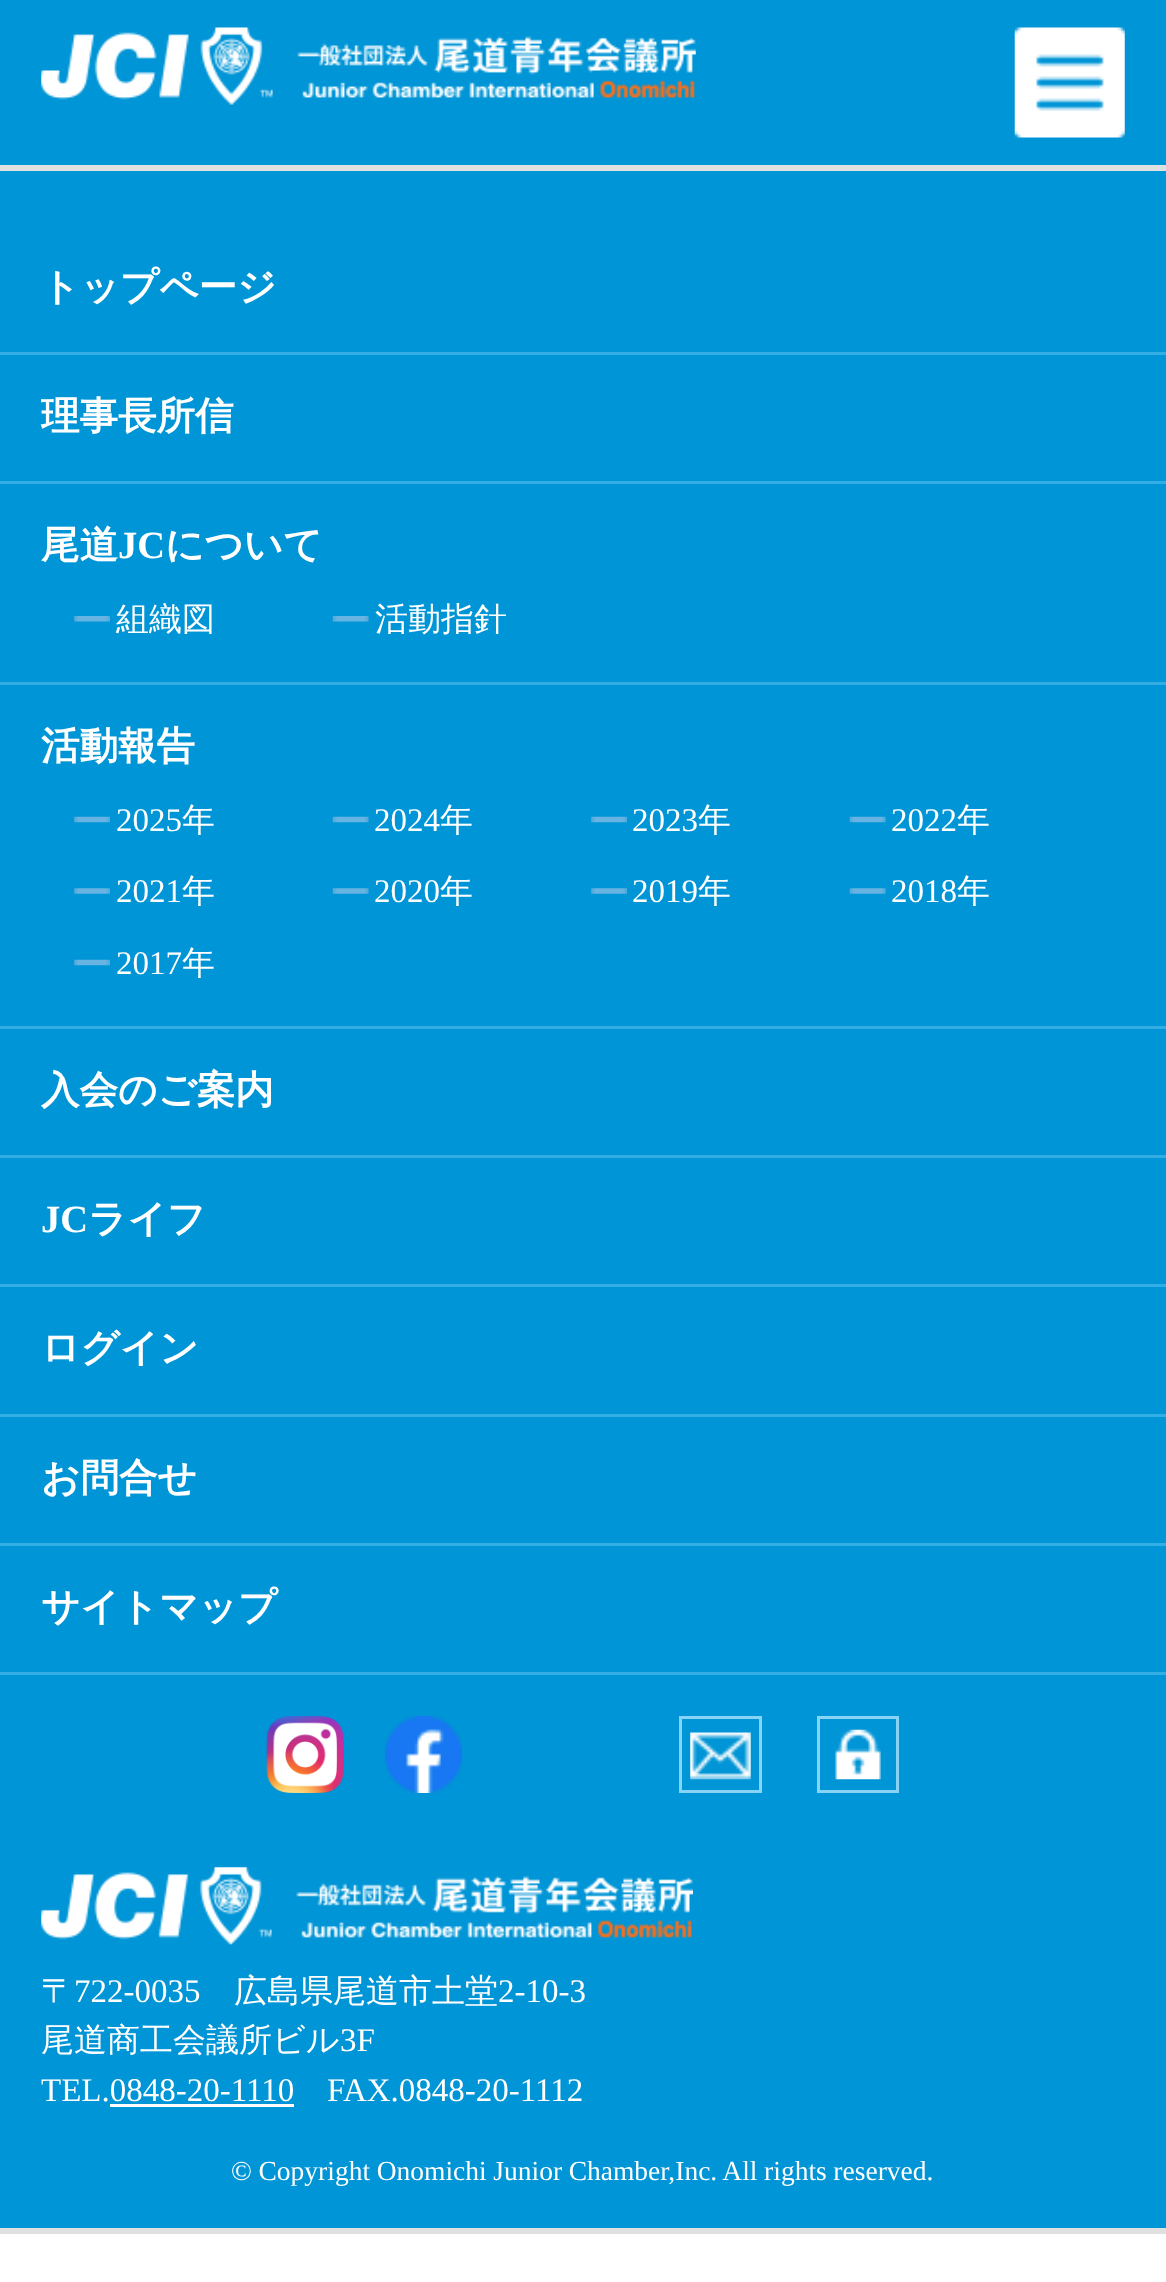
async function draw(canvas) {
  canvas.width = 1166;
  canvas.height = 2282;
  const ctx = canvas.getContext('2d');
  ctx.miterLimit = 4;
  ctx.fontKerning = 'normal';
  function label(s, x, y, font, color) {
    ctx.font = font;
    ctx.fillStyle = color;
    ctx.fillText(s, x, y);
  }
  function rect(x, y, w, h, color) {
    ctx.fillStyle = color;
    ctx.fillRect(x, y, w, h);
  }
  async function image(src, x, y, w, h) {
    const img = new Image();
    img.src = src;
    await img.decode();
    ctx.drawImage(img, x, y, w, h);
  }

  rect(0, 0, 1166, 2282, '#fff');
  rect(0, 0, 1166, 165, '#0095d6');
  await image('assets/img1.png', 41, 27, 655, 78);
  await image('assets/img2.png', 1014, 27, 111, 111);
  rect(0, 171, 1166, 2057, '#0095d6');
  rect(0, 165, 1166, 6, '#e0e0e0');
  rect(0, 2228, 1166, 6, '#e0e0e0');
  rect(0, 352, 1166, 3, '#32aee4');
  label('トップページ', 41, 300, 'bold 38.5px WenQuanYi Zen Hei', '#fff');
  rect(0, 481, 1166, 3, '#32aee4');
  label('理事長所信', 41, 429, 'bold 38.5px WenQuanYi Zen Hei', '#fff');
  rect(0, 682, 1166, 3, '#32aee4');
  label('尾道', 41, 558, 'bold 38.5px WenQuanYi Zen Hei', '#fff');
  label('JC', 118, 558, 'bold 38.5px Liberation Serif', '#fff');
  label('について', 165, 558, 'bold 38.5px WenQuanYi Zen Hei', '#fff');
  await image('assets/img3.png', 74, 616, 36, 6);
  label('組織図', 116, 630, '500 33px WenQuanYi Zen Hei', '#fff');
  await image('assets/img4.png', 332, 616, 37, 6);
  label('活動指針', 375, 630, '500 33px WenQuanYi Zen Hei', '#fff');
  rect(0, 1026, 1166, 3, '#32aee4');
  label('活動報告', 41, 759, 'bold 38.5px WenQuanYi Zen Hei', '#fff');
  await image('assets/img5.png', 74, 816, 36, 7);
  label('2025', 116, 831, '33px Liberation Serif', '#fff');
  label('年', 182, 831, '500 33px WenQuanYi Zen Hei', '#fff');
  await image('assets/img6.png', 332, 816, 37, 7);
  label('2024', 374, 831, '33px Liberation Serif', '#fff');
  label('年', 440, 831, '500 33px WenQuanYi Zen Hei', '#fff');
  await image('assets/img5.png', 591, 816, 36, 7);
  label('2023', 632, 831, '33px Liberation Serif', '#fff');
  label('年', 698, 831, '500 33px WenQuanYi Zen Hei', '#fff');
  await image('assets/img6.png', 849, 816, 37, 7);
  label('2022', 891, 831, '33px Liberation Serif', '#fff');
  label('年', 957, 831, '500 33px WenQuanYi Zen Hei', '#fff');
  await image('assets/img7.png', 74, 888, 36, 6);
  label('2021', 116, 902, '33px Liberation Serif', '#fff');
  label('年', 182, 902, '500 33px WenQuanYi Zen Hei', '#fff');
  await image('assets/img8.png', 332, 888, 37, 6);
  label('2020', 374, 902, '33px Liberation Serif', '#fff');
  label('年', 440, 902, '500 33px WenQuanYi Zen Hei', '#fff');
  await image('assets/img7.png', 591, 888, 36, 6);
  label('2019', 632, 902, '33px Liberation Serif', '#fff');
  label('年', 698, 902, '500 33px WenQuanYi Zen Hei', '#fff');
  await image('assets/img8.png', 849, 888, 37, 6);
  label('2018', 891, 902, '33px Liberation Serif', '#fff');
  label('年', 957, 902, '500 33px WenQuanYi Zen Hei', '#fff');
  await image('assets/img5.png', 74, 959, 36, 7);
  label('2017', 116, 974, '33px Liberation Serif', '#fff');
  label('年', 182, 974, '500 33px WenQuanYi Zen Hei', '#fff');
  rect(0, 1155, 1166, 3, '#32aee4');
  label('入会のご案内', 41, 1103, 'bold 38.5px WenQuanYi Zen Hei', '#fff');
  rect(0, 1284, 1166, 3, '#32aee4');
  label('JC', 41, 1232, 'bold 38.5px Liberation Serif', '#fff');
  label('ライフ', 88, 1232, 'bold 38.5px WenQuanYi Zen Hei', '#fff');
  rect(0, 1414, 1166, 3, '#32aee4');
  label('ログイン', 41, 1361, 'bold 38.5px WenQuanYi Zen Hei', '#fff');
  rect(0, 1543, 1166, 3, '#32aee4');
  label('お問合せ', 41, 1491, 'bold 38.5px WenQuanYi Zen Hei', '#fff');
  rect(0, 1672, 1166, 3, '#32aee4');
  label('サイトマップ', 41, 1620, 'bold 38.5px WenQuanYi Zen Hei', '#fff');
  await image('assets/img9.png', 266, 1716, 78, 77);
  await image('assets/img10.png', 385, 1716, 77, 77);
  await image('assets/img11.png', 690, 1732, 61, 48);
  ctx.strokeStyle = '#88d4f5';
  ctx.lineWidth = 3;
  ctx.strokeRect(680.5, 1717.5, 80, 74);
  await image('assets/img12.png', 835, 1729, 46, 51);
  ctx.strokeRect(818.5, 1717.5, 79, 74);
  await image('assets/img13.png', 41, 1867, 652, 78);
  label('〒', 41, 2002, '500 33px WenQuanYi Zen Hei', '#fff');
  label('722-0035', 74, 2002, '33px Liberation Serif', '#fff');
  label('広島県尾道市土堂', 234, 2002, '500 33px WenQuanYi Zen Hei', '#fff');
  label('2-10-3', 498, 2002, '33px Liberation Serif', '#fff');
  label('尾道商工会議所ビル', 41, 2051, '500 33px WenQuanYi Zen Hei', '#fff');
  label('3F', 340, 2051, '33px Liberation Serif', '#fff');
  label('TEL.0848-20-1110', 41, 2101, '33px Liberation Serif', '#fff');
  label('FAX.0848-20-1112', 327, 2101, '33px Liberation Serif', '#fff');
  rect(110, 2104, 184, 3, '#fff');
  ctx.wordSpacing = '-0.25px';
  label('© Copyright Onomichi Junior Chamber,Inc. All rights reserved.', 231, 2180, '27.5px Liberation Serif', '#fff');
}

draw(document.querySelector('canvas'));
